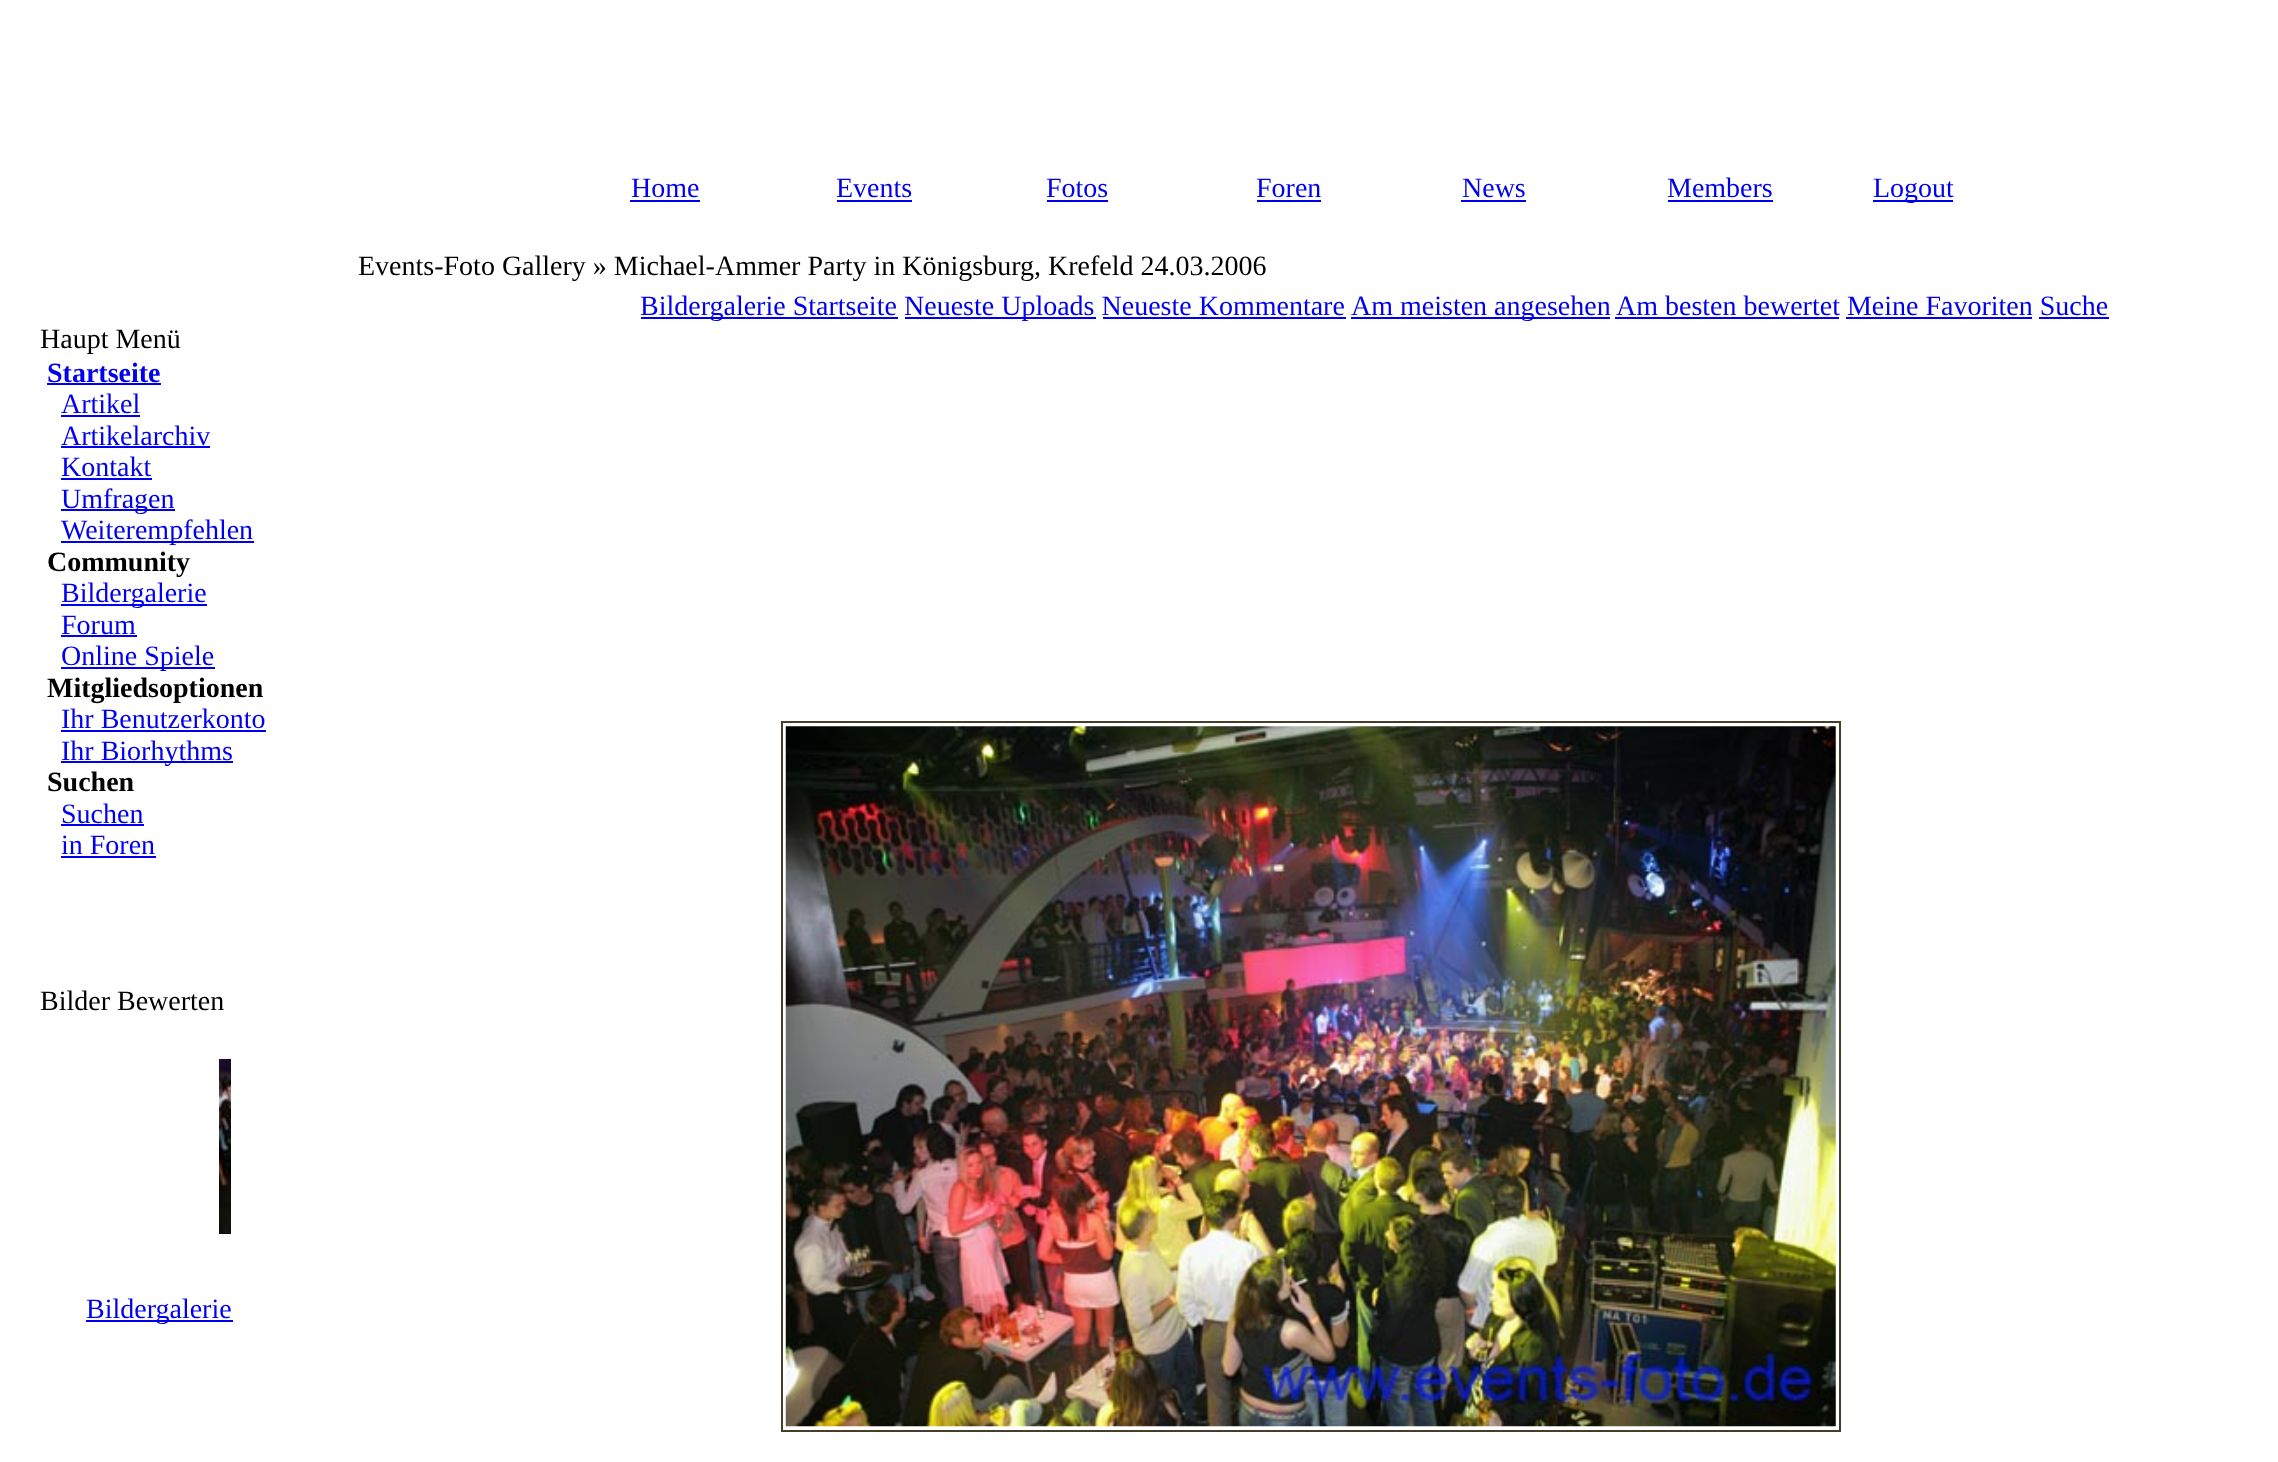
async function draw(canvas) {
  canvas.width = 2278;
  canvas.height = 1462;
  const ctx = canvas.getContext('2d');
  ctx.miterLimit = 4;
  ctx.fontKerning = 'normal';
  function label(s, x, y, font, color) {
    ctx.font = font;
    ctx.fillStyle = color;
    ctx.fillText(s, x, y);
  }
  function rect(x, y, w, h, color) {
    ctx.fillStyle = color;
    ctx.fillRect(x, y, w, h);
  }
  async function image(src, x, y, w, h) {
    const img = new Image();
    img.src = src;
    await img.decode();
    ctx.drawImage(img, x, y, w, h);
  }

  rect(0, 0, 2278, 1462, '#fff');
  label('Home', 631, 197, '28px Liberation Serif', '#00e');
  rect(630, 200, 70, 2, '#00e');
  label('Events', 836, 197, '28px Liberation Serif', '#00e');
  rect(837, 200, 75, 2, '#00e');
  label('Fotos', 1046, 197, '28px Liberation Serif', '#00e');
  rect(1047, 200, 61, 2, '#00e');
  label('Foren', 1256, 197, '28px Liberation Serif', '#00e');
  rect(1257, 200, 64, 2, '#00e');
  label('News', 1462, 197, '28px Liberation Serif', '#00e');
  rect(1461, 200, 65, 2, '#00e');
  label('Members', 1667, 197, '28px Liberation Serif', '#00e');
  rect(1668, 200, 105, 2, '#00e');
  rect(1873, 200, 80, 2, '#00e');
  label('Logout', 1873, 197, '28px Liberation Serif', '#00e');
  label('Events-Foto Gallery » Michael-Ammer Party in Königsburg, Krefeld 24.03.2006', 358, 275, '28px Liberation Serif', '#000');
  rect(641, 317, 257, 2, '#00e');
  label('Bildergalerie Startseite', 640, 315, '28px Liberation Serif', '#00e');
  rect(905, 317, 191, 2, '#00e');
  label('Neueste Uploads Neueste Kommentare', 904, 315, '28px Liberation Serif', '#00e');
  rect(1351, 317, 259, 2, '#00e');
  label('Am meisten angesehen', 1351, 315, '28px Liberation Serif', '#00e');
  label('Am besten bewertet Meine Favoriten Suche', 1616, 315, '28px Liberation Serif', '#00e');
  rect(1615, 317, 224, 2, '#00e');
  rect(1103, 317, 243, 2, '#00e');
  rect(1846, 317, 186, 2, '#00e');
  rect(2039, 317, 70, 2, '#00e');
  ctx.strokeStyle = '#473e29';
  ctx.lineWidth = 2;
  ctx.strokeRect(782, 722, 1058, 709);
  await image('assets/img1.png', 785, 726, 1051, 701);
  label('Haupt Menü', 40, 348, '28px Liberation Serif', '#000');
  label('Startseite', 47, 382, 'bold 28px Liberation Serif', '#00e');
  rect(47, 383, 114, 2, '#00e');
  label('Artikel', 61, 413, '28px Liberation Serif', '#00e');
  rect(61, 415, 79, 2, '#00e');
  label('Artikelarchiv', 61, 445, '28px Liberation Serif', '#00e');
  rect(61, 446, 149, 2, '#00e');
  label('Kontakt', 61, 476, '28px Liberation Serif', '#00e');
  rect(61, 478, 91, 2, '#00e');
  rect(61, 509, 114, 2, '#00e');
  label('Umfragen', 61, 508, '28px Liberation Serif', '#00e');
  rect(61, 541, 193, 2, '#00e');
  label('Weiterempfehlen', 61, 539, '28px Liberation Serif', '#00e');
  label('Community', 47, 571, 'bold 28px Liberation Serif', '#000');
  rect(61, 604, 146, 2, '#00e');
  label('Bildergalerie', 61, 602, '28px Liberation Serif', '#00e');
  label('Forum', 61, 634, '28px Liberation Serif', '#00e');
  rect(61, 635, 76, 2, '#00e');
  rect(61, 667, 154, 2, '#00e');
  label('Online Spiele', 61, 665, '28px Liberation Serif', '#00e');
  label('Mitgliedsoptionen', 47, 697, 'bold 28px Liberation Serif', '#000');
  label('Ihr Benutzerkonto', 61, 728, '28px Liberation Serif', '#00e');
  rect(61, 730, 205, 2, '#00e');
  rect(61, 761, 172, 2, '#00e');
  label('Ihr Biorhythms', 61, 760, '28px Liberation Serif', '#00e');
  label('Suchen', 47, 791, 'bold 28px Liberation Serif', '#000');
  label('Suchen', 61, 823, '28px Liberation Serif', '#00e');
  rect(61, 824, 83, 2, '#00e');
  label('in Foren', 61, 854, '28px Liberation Serif', '#00e');
  rect(61, 856, 95, 2, '#00e');
  label('Bilder Bewerten', 40, 1010, '28px Liberation Serif', '#000');
  await image('assets/img2.png', 219, 1059, 12, 175);
  rect(86, 1320, 147, 2, '#00e');
  label('Bildergalerie', 86, 1318, '28px Liberation Serif', '#00e');
}

draw(document.querySelector('canvas'));
